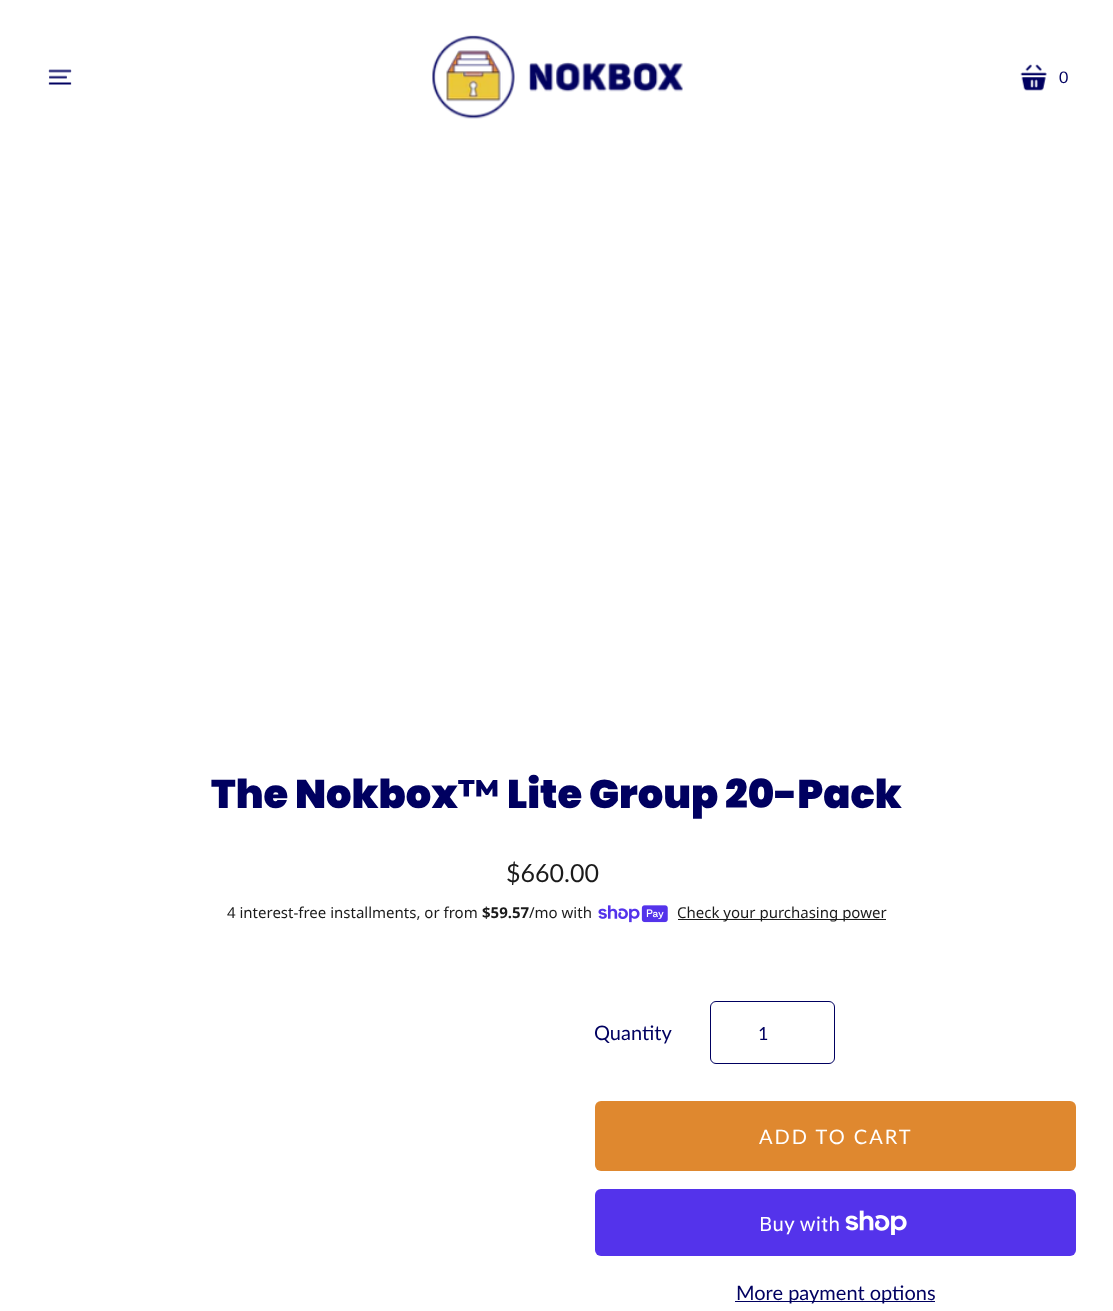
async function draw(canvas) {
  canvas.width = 1113;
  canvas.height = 1311;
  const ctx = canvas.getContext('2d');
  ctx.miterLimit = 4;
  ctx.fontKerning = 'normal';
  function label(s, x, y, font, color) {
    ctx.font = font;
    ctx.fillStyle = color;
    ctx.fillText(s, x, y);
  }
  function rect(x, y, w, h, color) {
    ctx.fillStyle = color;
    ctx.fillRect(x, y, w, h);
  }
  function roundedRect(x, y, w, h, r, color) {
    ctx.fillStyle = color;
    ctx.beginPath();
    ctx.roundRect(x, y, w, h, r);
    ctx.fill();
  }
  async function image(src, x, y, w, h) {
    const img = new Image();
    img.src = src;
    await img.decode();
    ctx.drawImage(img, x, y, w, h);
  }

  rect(0, 0, 1113, 1311, '#fff');
  await image('assets/img1.png', 48, 69, 24, 16);
  await image('assets/img2.png', 49, 75, 18, 4);
  await image('assets/img3.png', 432, 35, 251, 84);
  await image('assets/img4.png', 1020, 64, 27, 27);
  label('0', 1059, 83, '16px Lato', '#000060');
  label('The Nokbox', 211, 808, '900 40px Poppins', '#000060');
  label('™', 458, 808, '800 40px Montserrat', '#000060');
  label('Lite Group 20-Pack', 507, 808, '900 40px Poppins', '#000060');
  label('$660.00', 506, 882, '25px Lato', '#1b1b1b');
  label('4 interest-free installments, or from', 227, 918, '15px Noto Sans', '#1b1b1b');
  label('$59.57', 482, 918, 'bold 15px Noto Sans', '#1b1b1b');
  label('/mo with', 529, 918, '15px Noto Sans', '#1b1b1b');
  await image('assets/img5.png', 598, 905, 70, 18);
  rect(678, 919, 208, 1, '#1b1b1b');
  label('Check your purchasing power', 677, 918, '15px Noto Sans', '#1b1b1b');
  label('Quantity', 594, 1040, '20px Lato', '#000060');
  ctx.beginPath();
  ctx.roundRect(710.5, 1001.5, 124, 62, 5.5);
  ctx.strokeStyle = '#000060';
  ctx.stroke();
  label('1', 758, 1040, '18px Lato', '#000060');
  roundedRect(595, 1101, 481, 70, 6, '#df882f');
  ctx.letterSpacing = '2px';
  label('ADD TO CART', 759, 1144, '20px Lato', '#fff');
  roundedRect(595, 1189, 481, 67, 6, '#5433eb');
  ctx.letterSpacing = '0px';
  label('Buy with', 759, 1231, '20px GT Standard', '#fff');
  await image('assets/img6.png', 845, 1210, 62, 25);
  rect(735, 1301, 200, 1, '#000060');
  label('More payment options', 736, 1300, '20px Lato', '#000060');
}

draw(document.querySelector('canvas'));
